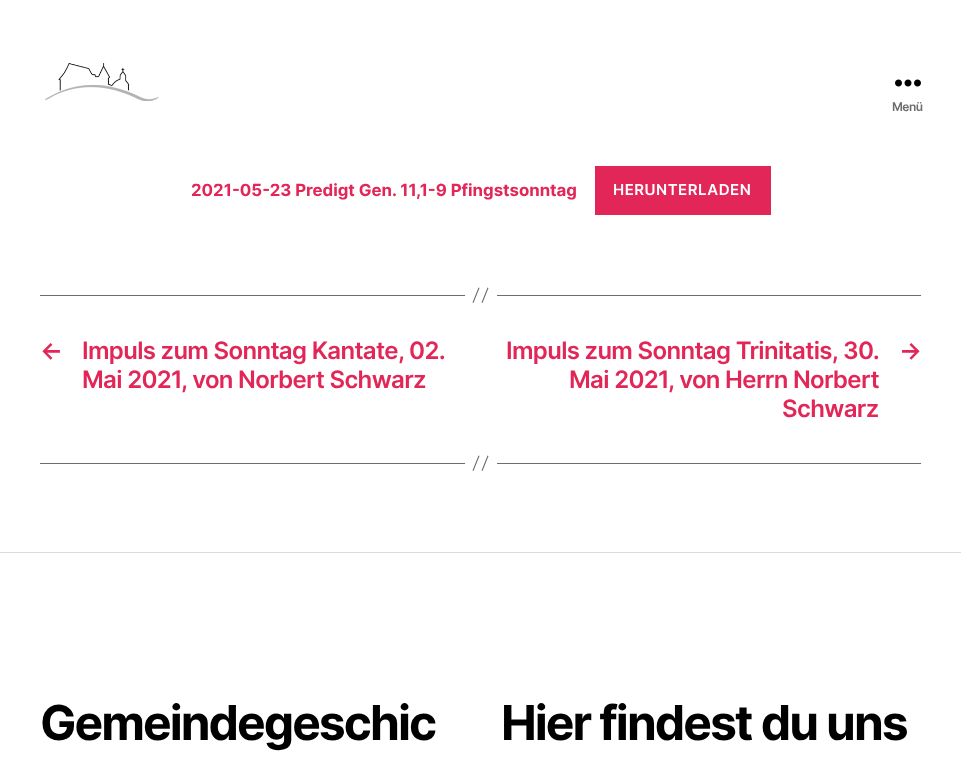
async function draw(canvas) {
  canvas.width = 961;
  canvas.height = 758;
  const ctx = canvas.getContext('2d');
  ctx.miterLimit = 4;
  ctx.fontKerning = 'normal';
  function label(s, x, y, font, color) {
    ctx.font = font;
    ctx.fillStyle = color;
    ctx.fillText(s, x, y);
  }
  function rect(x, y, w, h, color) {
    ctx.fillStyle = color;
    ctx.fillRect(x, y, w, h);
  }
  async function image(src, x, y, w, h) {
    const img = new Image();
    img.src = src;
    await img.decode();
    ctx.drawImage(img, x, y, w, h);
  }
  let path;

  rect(0, 0, 961, 758, '#fff');
  await image('assets/img1.png', 45, 63, 114, 38);
  await image('assets/img2.png', 895, 79, 26, 8);
  ctx.letterSpacing = '-0.5px';
  label('Menü', 892, 111, '600 12px Inter', '#6d6d6d');
  ctx.letterSpacing = '0px';
  label('2021-05-23 Predigt Gen. 11,1-9 Pfingstsonntag', 191, 196, 'bold 16.8px Inter', '#e22658');
  rect(595, 166, 176, 49, '#e22658');
  ctx.letterSpacing = '0.5px';
  label('HERUNTERLADEN', 613, 195, '600 15px Inter', '#fff');
  rect(497, 295, 424, 1, '#6d6d6d');
  rect(40, 295, 425, 1, '#6d6d6d');
  path = new Path2D('M478.5 287.5L479.5 288L473.5 303L472.5 302.5ZM487.5 287.5L488.5 288L482.5 303L481.5 302.5Z');
  ctx.fill(path);
  ctx.letterSpacing = '-0.65px';
  label('←', 40, 359, '600 24px Inter', '#e22658');
  label('Impuls zum Sonntag Kantate, 02.', 82, 359, '600 24px Inter', '#e22658');
  label('Mai 2021, von Norbert Schwarz', 82, 388, '600 24px Inter', '#e22658');
  label('Impuls zum Sonntag Trinitatis, 30.', 506, 359, '600 24px Inter', '#e22658');
  label('Mai 2021, von Herrn Norbert', 569, 388, '600 24px Inter', '#e22658');
  label('Schwarz', 782, 417, '600 24px Inter', '#e22658');
  label('→', 899, 359, '600 24px Inter', '#e22658');
  rect(497, 463, 424, 1, '#6d6d6d');
  rect(40, 463, 425, 1, '#6d6d6d');
  path = new Path2D('M478.5 455.5L479.5 456L473.5 471L472.5 470.5ZM487.5 455.5L488.5 456L482.5 471L481.5 470.5Z');
  ctx.fill(path);
  rect(0, 552, 961, 1, '#dbdbdb');
  ctx.letterSpacing = '-2px';
  label('Gemeindegeschic', 40, 740, 'bold 48px Inter', '#000');
  label('Hier findest du uns', 501, 740, 'bold 48px Inter', '#000');
}

draw(document.querySelector('canvas'));
